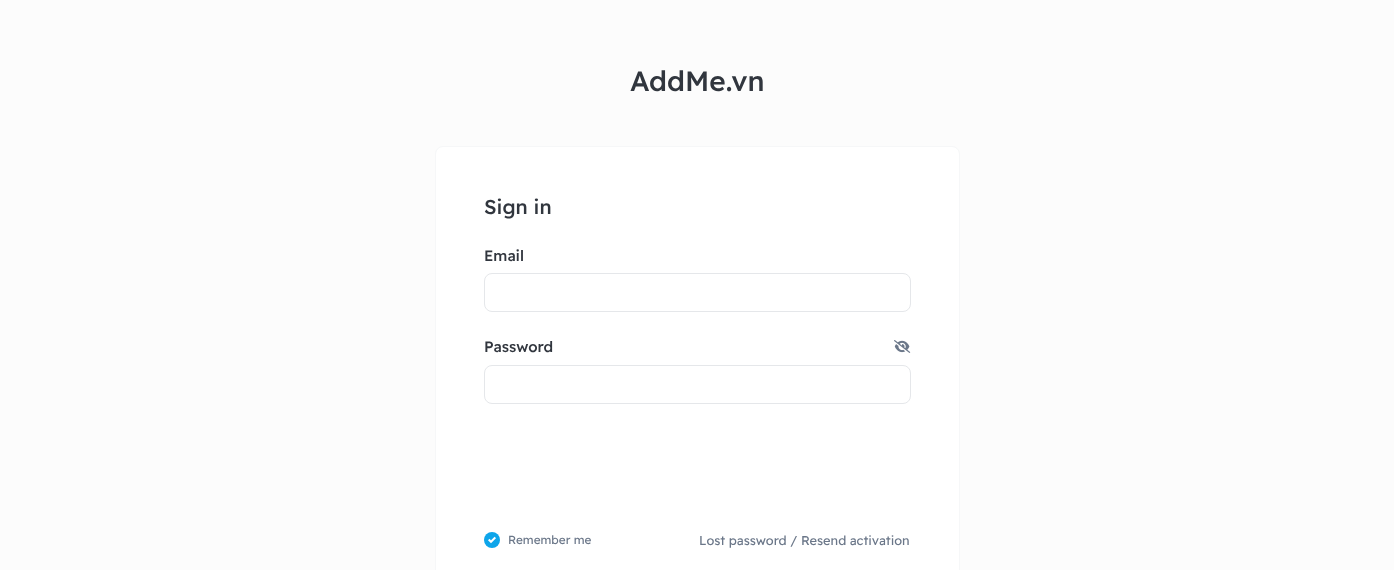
async function draw(canvas) {
  canvas.width = 1394;
  canvas.height = 570;
  const ctx = canvas.getContext('2d');
  ctx.miterLimit = 4;
  ctx.fontKerning = 'normal';
  function label(s, x, y, font, color) {
    ctx.font = font;
    ctx.fillStyle = color;
    ctx.fillText(s, x, y);
  }
  function rect(x, y, w, h, color) {
    ctx.fillStyle = color;
    ctx.fillRect(x, y, w, h);
  }
  async function image(src, x, y, w, h) {
    const img = new Image();
    img.src = src;
    await img.decode();
    ctx.drawImage(img, x, y, w, h);
  }

  rect(0, 0, 1394, 570, '#fcfcfc');
  label('AddMe.vn', 630, 91, '500 28px Readex Pro', '#31363e');
  ctx.fillStyle = '#fff';
  ctx.beginPath();
  ctx.roundRect(435.5, 146.5, 524, 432, 7.5);
  ctx.fill();
  ctx.strokeStyle = '#f6f7f8';
  ctx.stroke();
  label('Sign in', 484, 214, '500 20px Readex Pro', '#31363e');
  label('Email', 484, 261, '500 15px Readex Pro', '#31363e');
  ctx.beginPath();
  ctx.roundRect(484.5, 273.5, 426, 38, 7.5);
  ctx.strokeStyle = '#e5e7ea';
  ctx.stroke();
  label('Password', 484, 352, '500 15px Readex Pro', '#31363e');
  await image('assets/img1.png', 894, 340, 17, 13);
  ctx.beginPath();
  ctx.roundRect(484.5, 365.5, 426, 38, 7.5);
  ctx.stroke();
  ctx.fillStyle = '#0ea5ea';
  ctx.beginPath();
  ctx.arc(492, 540, 8, 0, 2 * Math.PI);
  ctx.fill();
  label('Remember me', 508, 544, '11.75px Readex Pro', '#6b7789');
  await image('assets/img2.png', 488, 536, 8, 8);
  label('Lost password / Resend activation', 699, 545, '12.75px Readex Pro', '#6b7789');
}

draw(document.querySelector('canvas'));
